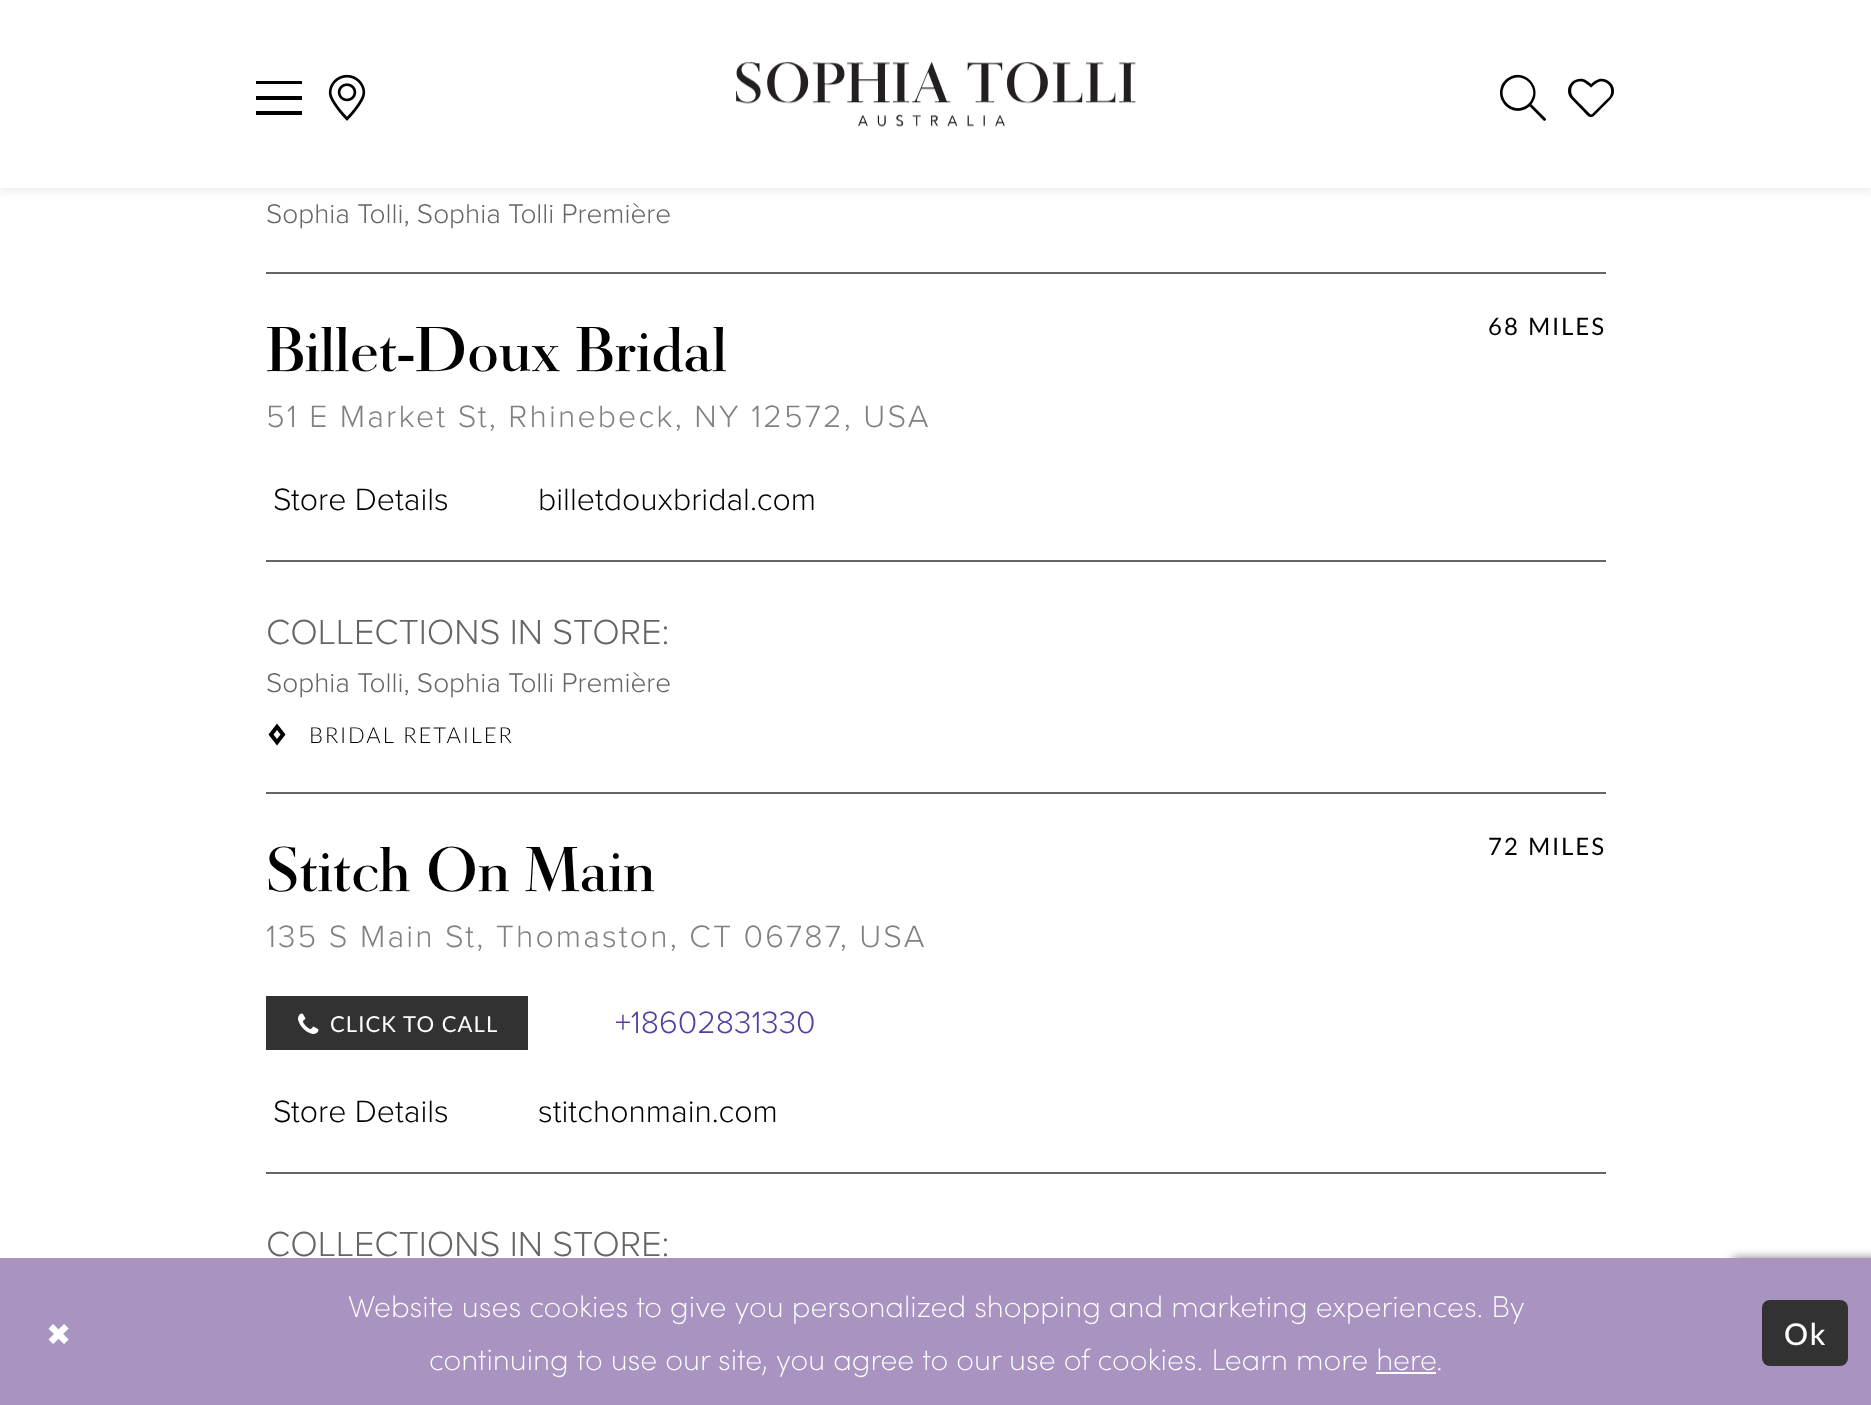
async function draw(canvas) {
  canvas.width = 1871;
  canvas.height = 1405;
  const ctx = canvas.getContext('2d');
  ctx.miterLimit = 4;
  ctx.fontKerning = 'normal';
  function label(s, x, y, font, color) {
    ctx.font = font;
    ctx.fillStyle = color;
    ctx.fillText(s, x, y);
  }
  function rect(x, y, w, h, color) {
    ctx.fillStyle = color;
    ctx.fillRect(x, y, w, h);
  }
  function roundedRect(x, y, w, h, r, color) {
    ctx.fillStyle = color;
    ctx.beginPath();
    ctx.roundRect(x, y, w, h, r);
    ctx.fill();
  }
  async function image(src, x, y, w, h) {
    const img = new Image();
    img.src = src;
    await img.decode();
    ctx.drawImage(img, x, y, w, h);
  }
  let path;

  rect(0, 0, 1871, 1405, '#fff');
  ctx.fillStyle = '#4c4c4b1a';
  ctx.filter = 'blur(4px)';
  ctx.beginPath();
  ctx.rect(0, 4, 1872, 188);
  ctx.fill();
  ctx.filter = 'none';
  rect(0, 0, 1871, 188, '#fff');
  ctx.fillStyle = '#000';
  path = new Path2D('M256 81H302V84H256ZM256 100V96H302V100ZM256 115V111H302V115Z');
  ctx.fill(path);
  await image('assets/img1.png', 328, 74, 38, 47);
  await image('assets/img2.png', 736, 62, 400, 65);
  await image('assets/img3.png', 1500, 74, 46, 47);
  await image('assets/img4.png', 1568, 78, 46, 39);
  label('Sophia Tolli, Sophia Tolli Première', 266, 223, '300 28px Proxima Nova', '#656565');
  rect(266, 272, 1340, 2, '#656565');
  label('Billet-Doux Bridal', 266, 371, '62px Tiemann', '#000');
  ctx.letterSpacing = '2px';
  label('68 MILES', 1488, 335, '24px Lato', '#000');
  ctx.letterSpacing = '2.15px';
  label('51 E Market St, Rhinebeck, NY 12572, USA', 266, 427, '300 32px Proxima Nova', '#818181');
  ctx.letterSpacing = '0px';
  label('Store Details', 273, 510, '300 32px Proxima Nova', '#000');
  label('billetdouxbridal.com', 538, 510, '300 32px Proxima Nova', '#000');
  rect(266, 560, 1340, 2, '#656565');
  label('COLLECTIONS IN STORE:', 266, 644, '300 36px Proxima Nova', '#656565');
  label('Sophia Tolli, Sophia Tolli Première', 266, 692, '300 28px Proxima Nova', '#656565');
  ctx.fillStyle = '#000';
  path = new Path2D('M273.5 734.5L277 739L280.5 734.5L277 730ZM268.5 734.5L277 723.5L285.5 734.5L277 745.5Z');
  ctx.fill(path);
  ctx.letterSpacing = '2px';
  label('BRIDAL RETAILER', 309, 743, '300 22px Lato', '#000');
  rect(266, 792, 1340, 2, '#656565');
  ctx.letterSpacing = '0px';
  label('Stitch On Main', 266, 891, '62px Tiemann', '#000');
  ctx.letterSpacing = '2px';
  label('72 MILES', 1488, 855, '24px Lato', '#000');
  ctx.letterSpacing = '2.15px';
  label('135 S Main St, Thomaston, CT 06787, USA', 266, 947, '300 32px Proxima Nova', '#818181');
  rect(266, 996, 262, 54, '#323232');
  await image('assets/img5.png', 298, 1013, 21, 21);
  ctx.letterSpacing = '1.1px';
  label('CLICK TO CALL', 330, 1032, '22px Lato', '#fff');
  ctx.letterSpacing = '0px';
  label('+18602831330', 615, 1033, '300 32px Proxima Nova', '#563d9f');
  label('Store Details', 273, 1122, '300 32px Proxima Nova', '#000');
  label('stitchonmain.com', 538, 1122, '300 32px Proxima Nova', '#000');
  rect(266, 1172, 1340, 2, '#656565');
  label('COLLECTIONS IN STORE:', 266, 1256, '300 36px Proxima Nova', '#656565');
  ctx.fillStyle = '#808080';
  ctx.filter = 'blur(5px)';
  ctx.beginPath();
  ctx.roundRect(1732, 1258, 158, 120, 4);
  ctx.fill();
  ctx.filter = 'none';
  rect(0, 1258, 1871, 147, '#a993c1');
  ctx.letterSpacing = '2px';
  label('✖', 46, 1345, '30px DejaVu Sans', '#fff');
  ctx.letterSpacing = '0px';
  label('Website uses cookies to give you personalized shopping and marketing experiences. By', 348, 1317, '200 30px Sofia', '#fff');
  label('continuing to use our site, you agree to our use of cookies. Learn more here', 429, 1370, '200 30px Sofia', '#fff');
  label('.', 1436, 1370, '200 30px Sofia', '#fff');
  rect(1376, 1372, 60, 2, '#fff');
  roundedRect(1762, 1300, 86, 66, 8, '#323232');
  ctx.letterSpacing = '2px';
  label('Ok', 1784, 1345, '500 30px Lato', '#fff');
}

draw(document.querySelector('canvas'));
